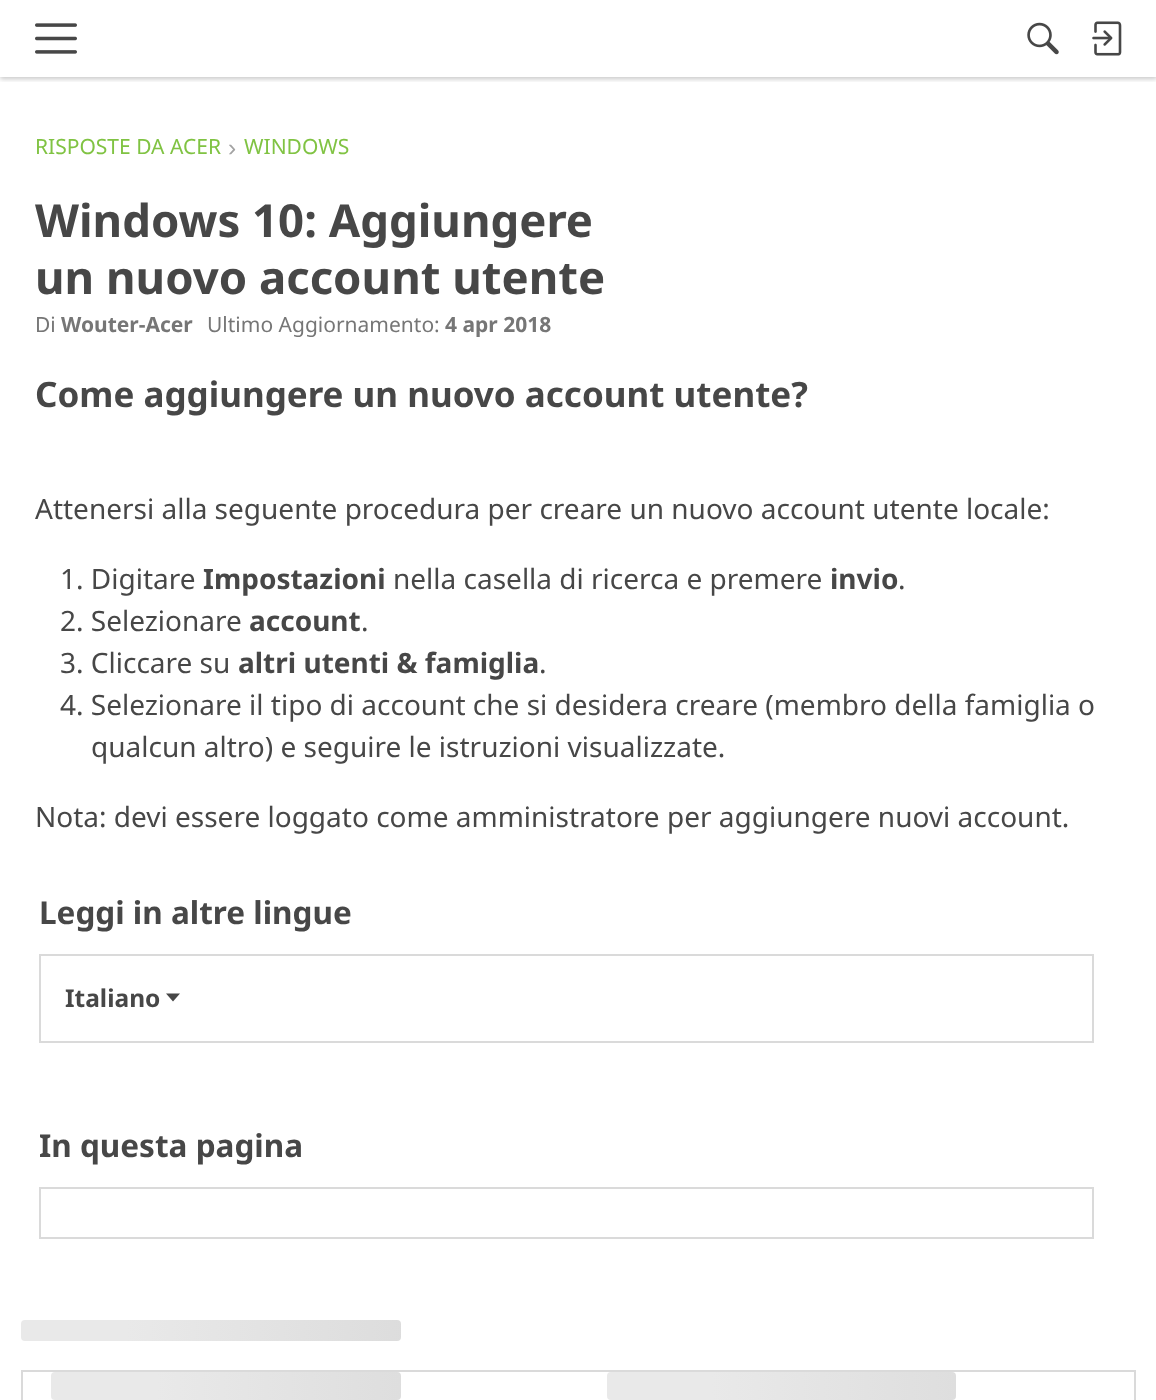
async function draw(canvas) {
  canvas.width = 1156;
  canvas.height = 1400;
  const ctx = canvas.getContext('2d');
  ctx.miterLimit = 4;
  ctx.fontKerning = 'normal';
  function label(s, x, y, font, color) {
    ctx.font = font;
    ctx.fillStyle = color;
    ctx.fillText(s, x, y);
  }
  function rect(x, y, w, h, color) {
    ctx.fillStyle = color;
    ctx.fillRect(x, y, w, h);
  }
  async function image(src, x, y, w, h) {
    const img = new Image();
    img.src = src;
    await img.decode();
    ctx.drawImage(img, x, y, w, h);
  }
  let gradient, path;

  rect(0, 0, 1156, 1400, '#fff');
  ctx.save();
  ctx.beginPath();
  ctx.rect(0, 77, 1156, 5);
  ctx.clip();
  ctx.fillStyle = '#00000038';
  ctx.filter = 'blur(2.5px)';
  ctx.beginPath();
  ctx.rect(0, 2, 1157, 77);
  ctx.fill();
  ctx.filter = 'none';
  ctx.restore();
  await image('assets/img1.png', 35, 23, 42, 31);
  await image('assets/img2.png', 1027, 22, 32, 33);
  await image('assets/img3.png', 1092, 21, 30, 35);
  label('RISPOSTE DA ACER', 35, 154, '21px Noto Sans', '#80c343');
  label('›', 228, 156, '24.5px Liberation Sans', '#a3a3a3');
  label('WINDOWS', 244, 154, '21px Noto Sans', '#80c343');
  label('Windows 10: Aggiungere', 35, 237, 'bold 45.5px Noto Sans', '#474747');
  label('un nuovo account utente', 35, 294, 'bold 45.5px Noto Sans', '#474747');
  label('Di', 35, 332, '21px Noto Sans', '#767676');
  label('Wouter-Acer', 61, 332, 'bold 21px Noto Sans', '#767676');
  label('Ultimo Aggiornamento:', 207, 332, '21px Noto Sans', '#767676');
  label('4 apr 2018', 445, 332, 'bold 21px Noto Sans', '#767676');
  label('Come aggiungere un nuovo account utente?', 35, 407, 'bold 35px Noto Sans', '#474747');
  label('Attenersi alla seguente procedura per creare un nuovo account utente locale:', 35, 519, '28px Noto Sans', '#474747');
  label('1. Digitare', 60, 589, '28px Noto Sans', '#474747');
  label('Impostazioni', 203, 589, 'bold 28px Noto Sans', '#474747');
  label('nella casella di ricerca e premere', 393, 589, '28px Noto Sans', '#474747');
  label('invio', 830, 589, 'bold 28px Noto Sans', '#474747');
  label('.', 898, 589, '28px Noto Sans', '#474747');
  label('2. Selezionare', 60, 631, '28px Noto Sans', '#474747');
  label('account', 249, 631, 'bold 28px Noto Sans', '#474747');
  label('.', 361, 631, '28px Noto Sans', '#474747');
  label('3. Cliccare su', 60, 673, '28px Noto Sans', '#474747');
  label('altri utenti & famiglia', 238, 673, 'bold 28px Noto Sans', '#474747');
  label('.', 539, 673, '28px Noto Sans', '#474747');
  label('4. Selezionare il tipo di account che si desidera creare (membro della famiglia o', 60, 715, '28px Noto Sans', '#474747');
  label('qualcun altro) e seguire le istruzioni visualizzate.', 91, 757, '28px Noto Sans', '#474747');
  label('Nota: devi essere loggato come amministratore per aggiungere nuovi account.', 35, 827, '28px Noto Sans', '#474747');
  label('Leggi in altre lingue', 39, 924, 'bold 31.5px Noto Sans', '#474747');
  ctx.strokeStyle = '#dadada';
  ctx.lineWidth = 2;
  ctx.strokeRect(40, 955, 1053, 87);
  label('Italiano', 65, 1007, 'bold 24.5px Noto Sans', '#474747');
  path = new Path2D('M166 993.5H180L173 1001.5Z');
  ctx.fill(path);
  label('In questa pagina', 39, 1157, 'bold 31.5px Noto Sans', '#474747');
  ctx.strokeRect(40, 1188, 1053, 50);
  gradient = ctx.createLinearGradient(21, 1330, 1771, 1330);
  gradient.addColorStop(0.06, '#e9e9e9');
  gradient.addColorStop(0.25, '#dadada');
  gradient.addColorStop(0.34, '#e9e9e9');
  ctx.fillStyle = gradient;
  ctx.beginPath();
  ctx.roundRect(21, 1320, 380, 21, 4);
  ctx.fill();
  ctx.strokeRect(22, 1371, 1113, 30);
  gradient = ctx.createLinearGradient(51, 1386, 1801, 1386);
  gradient.addColorStop(0.06, '#e9e9e9');
  gradient.addColorStop(0.25, '#dadada');
  gradient.addColorStop(0.34, '#e9e9e9');
  ctx.fillStyle = gradient;
  ctx.beginPath();
  ctx.roundRect(51, 1372, 350, 28, 4);
  ctx.fill();
  gradient = ctx.createLinearGradient(607, 1386, 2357, 1386);
  gradient.addColorStop(0.06, '#e9e9e9');
  gradient.addColorStop(0.25, '#dadada');
  gradient.addColorStop(0.34, '#e9e9e9');
  ctx.fillStyle = gradient;
  ctx.beginPath();
  ctx.roundRect(607, 1372, 349, 28, 4);
  ctx.fill();
}

draw(document.querySelector('canvas'));
